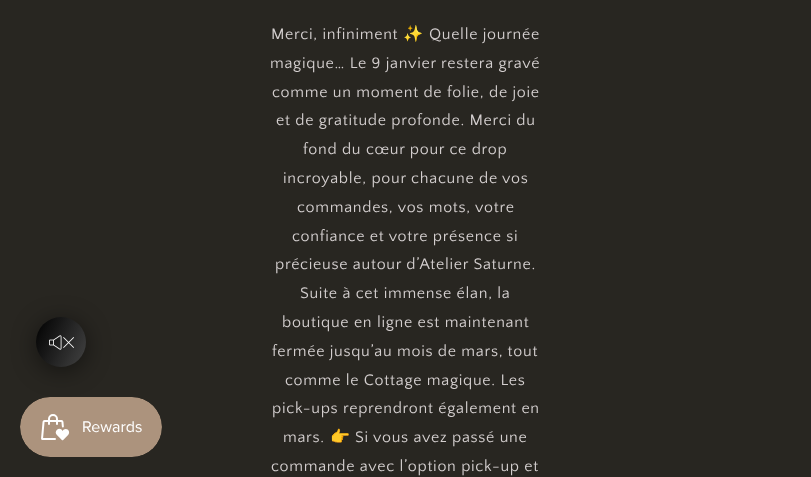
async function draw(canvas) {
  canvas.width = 811;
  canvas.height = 477;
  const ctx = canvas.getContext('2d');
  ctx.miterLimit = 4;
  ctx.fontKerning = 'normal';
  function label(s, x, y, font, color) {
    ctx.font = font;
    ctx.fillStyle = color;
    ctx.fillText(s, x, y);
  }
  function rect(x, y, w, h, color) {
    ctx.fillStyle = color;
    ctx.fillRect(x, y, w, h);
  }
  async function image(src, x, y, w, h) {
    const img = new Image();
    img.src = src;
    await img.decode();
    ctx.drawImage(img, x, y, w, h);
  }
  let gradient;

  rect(0, 0, 811, 477, '#282621');
  ctx.fillStyle = '#00000080';
  ctx.filter = 'blur(12px)';
  ctx.beginPath();
  ctx.roundRect(36, 321, 50, 50, 25);
  ctx.fill();
  ctx.filter = 'none';
  gradient = ctx.createLinearGradient(31, 328, 91, 356);
  gradient.addColorStop(0, '#000');
  gradient.addColorStop(1, '#434343');
  ctx.fillStyle = gradient;
  ctx.beginPath();
  ctx.arc(61, 342, 25, 0, 2 * Math.PI);
  ctx.fill();
  await image('assets/img1.png', 49, 335, 25, 15);
  ctx.letterSpacing = '0.7px';
  label('Merci, infiniment', 271, 39, '16px Quattrocento Sans', '#d4cfcf');
  label('✨', 403, 39, '16px Noto Color Emoji', '#d4cfcf');
  label('Quelle journée', 429, 39, '16px Quattrocento Sans', '#d4cfcf');
  label('magique… Le 9 janvier restera gravé', 270, 68, '16px Quattrocento Sans', '#d4cfcf');
  label('comme un moment de folie, de joie', 272, 97, '16px Quattrocento Sans', '#d4cfcf');
  label('et de gratitude profonde. Merci du', 276, 125, '16px Quattrocento Sans', '#d4cfcf');
  label('fond du cœur pour ce drop', 303, 154, '16px Quattrocento Sans', '#d4cfcf');
  label('incroyable, pour chacune de vos', 283, 183, '16px Quattrocento Sans', '#d4cfcf');
  label('commandes, vos mots, votre', 297, 212, '16px Quattrocento Sans', '#d4cfcf');
  label('confiance et votre présence si', 292, 241, '16px Quattrocento Sans', '#d4cfcf');
  label('précieuse autour d’Atelier Saturne.', 275, 269, '16px Quattrocento Sans', '#d4cfcf');
  label('Suite à cet immense élan, la', 300, 298, '16px Quattrocento Sans', '#d4cfcf');
  label('boutique en ligne est maintenant', 282, 327, '16px Quattrocento Sans', '#d4cfcf');
  label('fermée jusqu’au mois de mars, tout', 272, 356, '16px Quattrocento Sans', '#d4cfcf');
  label('comme le Cottage magique. Les', 285, 385, '16px Quattrocento Sans', '#d4cfcf');
  label('pick-ups reprendront également en', 272, 413, '16px Quattrocento Sans', '#d4cfcf');
  label('mars.', 283, 442, '16px Quattrocento Sans', '#d4cfcf');
  label('👉', 330, 442, '16px Noto Color Emoji', '#d4cfcf');
  label('Si vous avez passé une', 355, 442, '16px Quattrocento Sans', '#d4cfcf');
  label('commande avec l’option pick-up et', 271, 471, '16px Quattrocento Sans', '#d4cfcf');
  await image('assets/img2.png', 20, 397, 142, 60);
}

draw(document.querySelector('canvas'));
